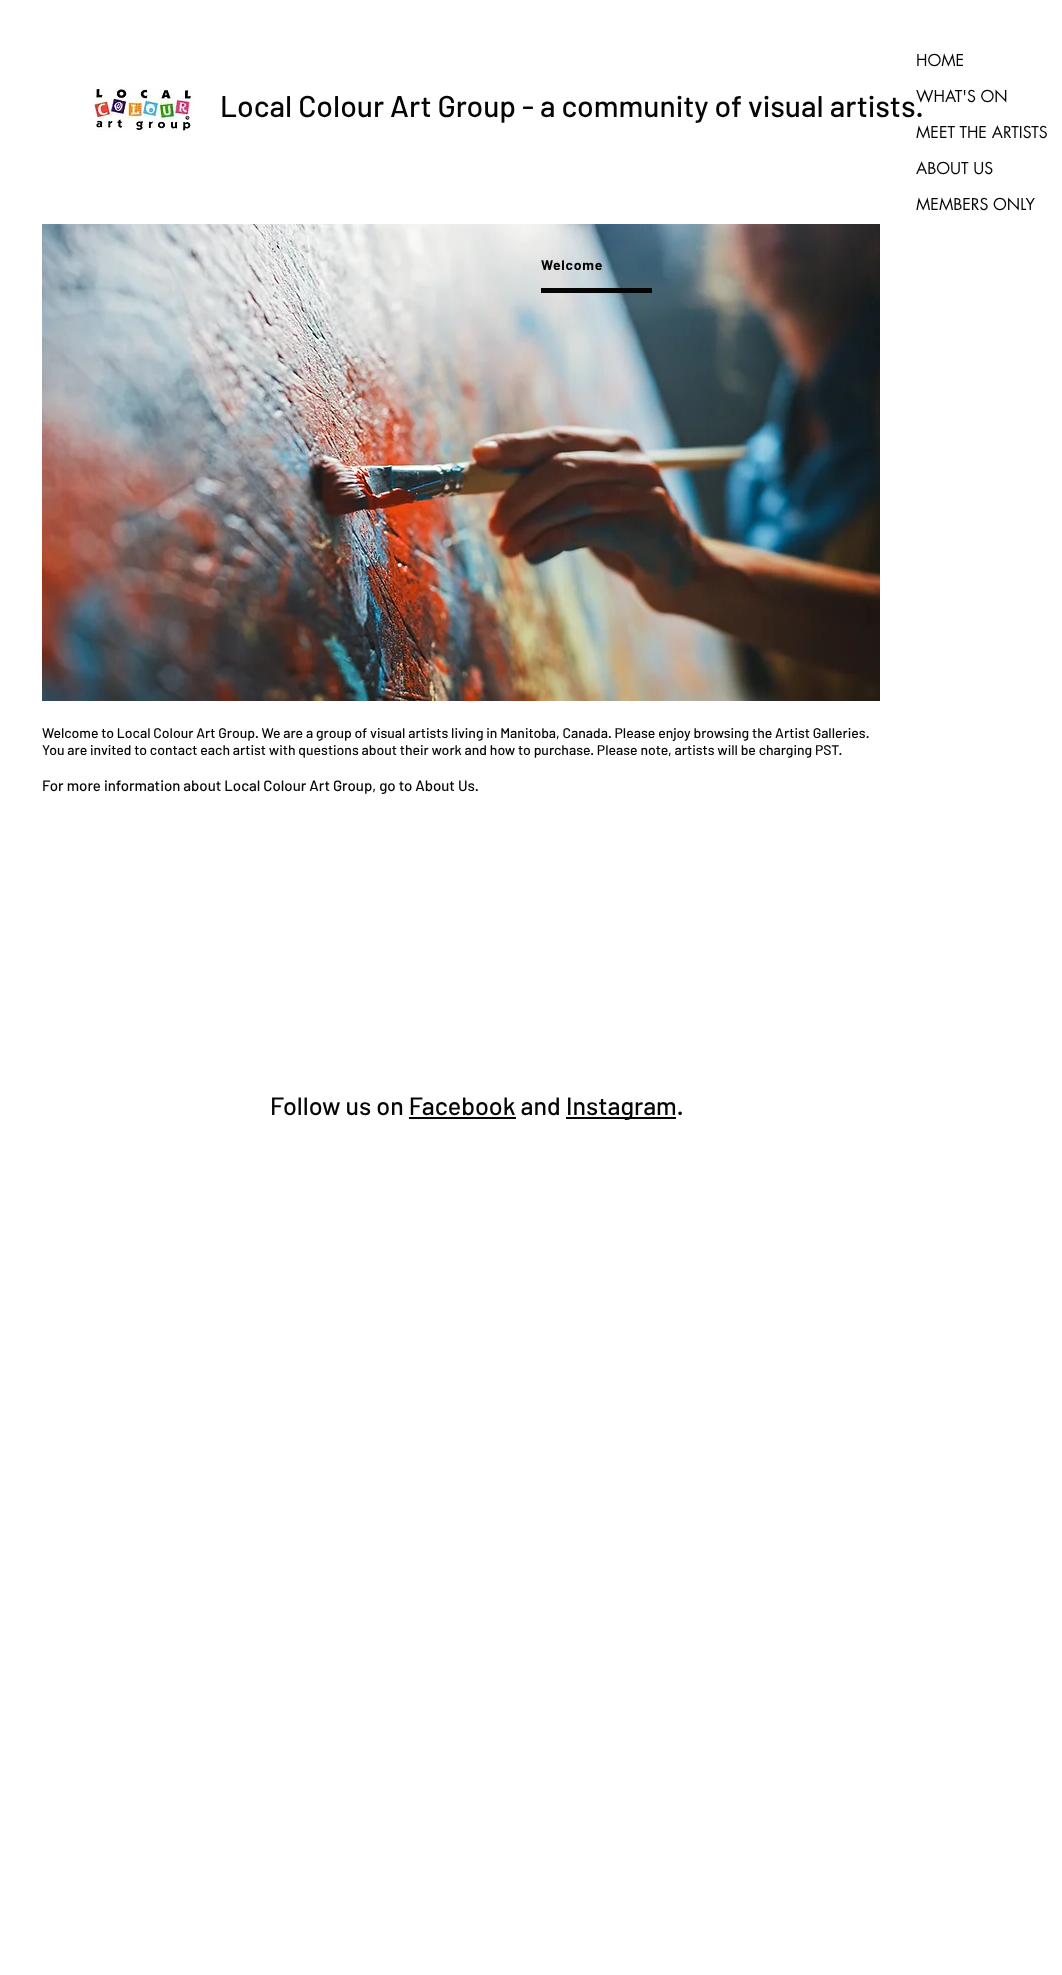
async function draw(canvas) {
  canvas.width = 1062;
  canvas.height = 1975;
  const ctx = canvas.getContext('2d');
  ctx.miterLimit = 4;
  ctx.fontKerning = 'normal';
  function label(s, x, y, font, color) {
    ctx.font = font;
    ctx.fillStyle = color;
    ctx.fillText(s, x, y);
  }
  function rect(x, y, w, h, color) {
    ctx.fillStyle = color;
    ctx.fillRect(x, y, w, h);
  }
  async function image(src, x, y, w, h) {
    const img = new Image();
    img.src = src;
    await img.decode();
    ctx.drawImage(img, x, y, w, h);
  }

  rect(0, 0, 1062, 1975, '#fff');
  await image('assets/img1.png', 91, 87, 103, 44);
  label('Local Colour Art Group - a community of visual artists.', 220, 117, '500 30px Barlow', '#050505');
  label('HOME', 916, 66, '16px futura', '#050505');
  label('WHAT\'S ON', 916, 102, '16px futura', '#050505');
  label('MEET THE ARTISTS', 916, 138, '16px futura', '#050505');
  label('ABOUT US', 916, 174, '16px futura', '#050505');
  label('MEMBERS ONLY', 916, 210, '16px futura', '#050505');
  await image('assets/img2.png', 42, 224, 838, 477);
  ctx.letterSpacing = '0.75px';
  label('Welcome', 541, 270, 'bold 14px Barlow', '#050505');
  rect(541, 288, 111, 5, '#050505');
  ctx.letterSpacing = '0px';
  label('Welcome to Local Colour Art Group. We are a group of visual artists living in Manitoba, Canada. Please enjoy browsing the Artist Galleries.', 42, 738, '500 14px Barlow', '#050505');
  label('You are invited to contact each artist with questions about their work and how to purchase. Please note, artists will be charging PST.', 42, 755, '500 14px Barlow', '#050505');
  label('For more information about Local Colour Art Group, go to About Us.', 42, 791, '500 15px Barlow', '#050505');
  label('Follow us on Facebook and', 270, 1115, '500 25px Barlow', '#050505');
  rect(566, 1117, 110, 2, '#050505');
  label('Instagram.', 566, 1115, '500 25px Barlow', '#050505');
  rect(409, 1117, 107, 2, '#050505');
}

draw(document.querySelector('canvas'));
